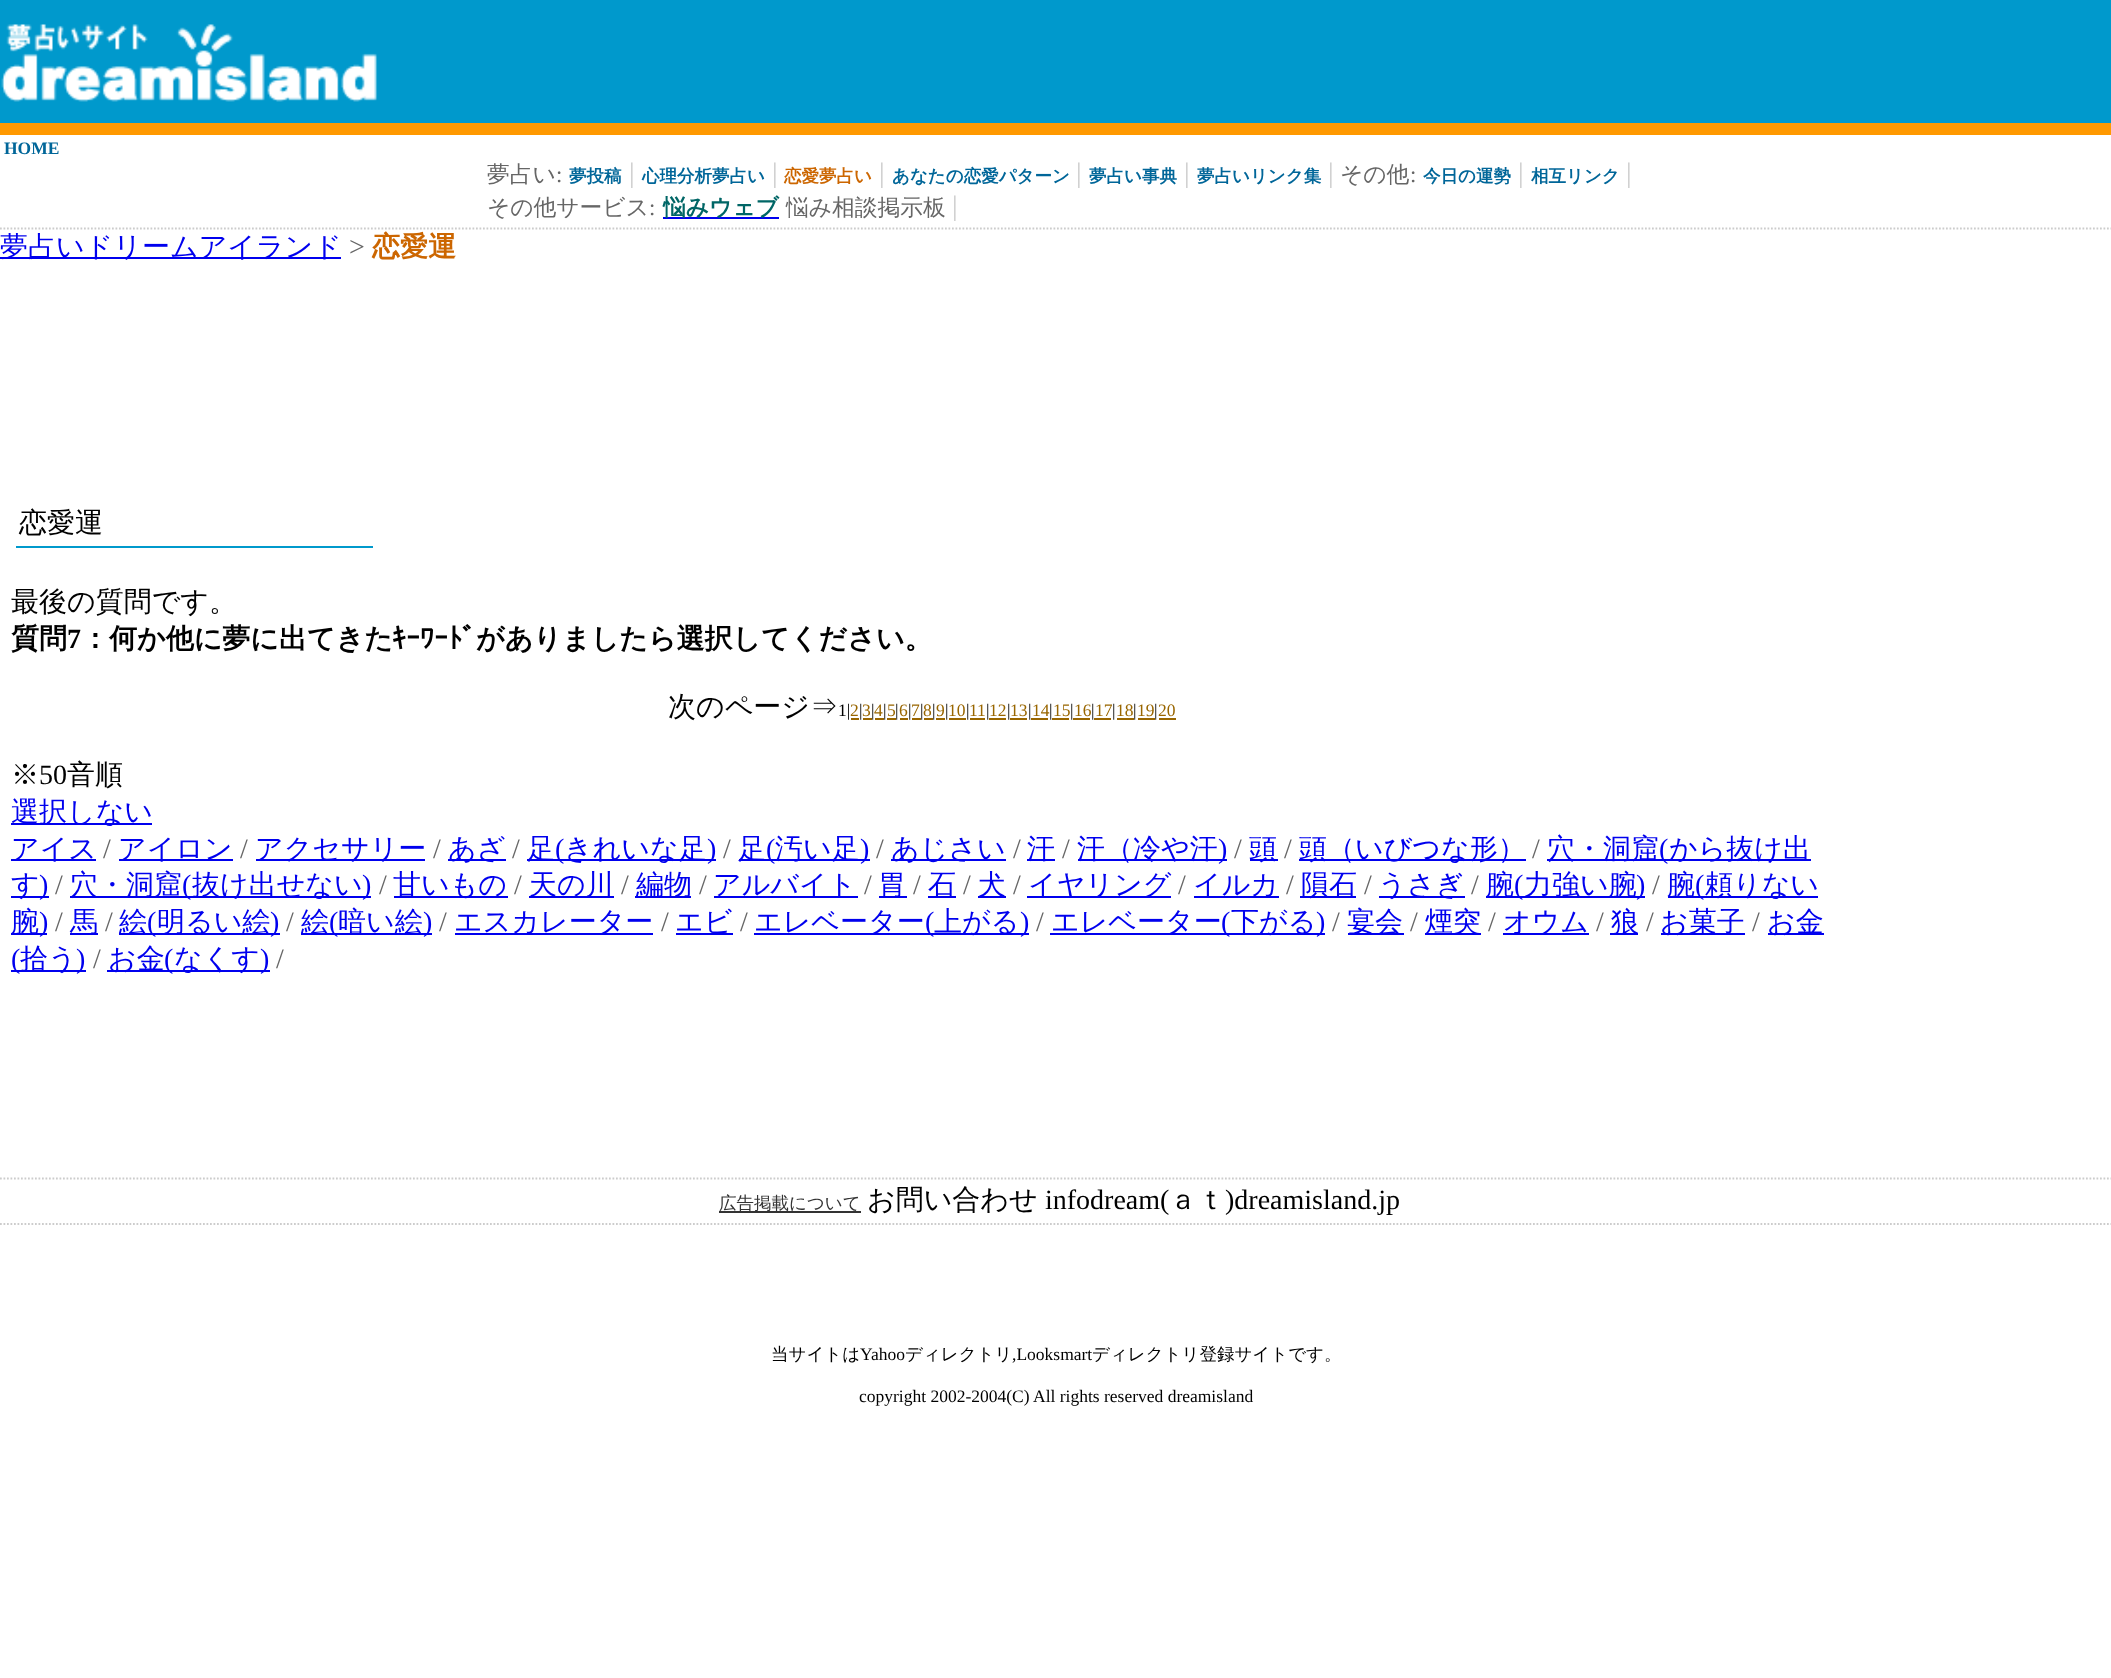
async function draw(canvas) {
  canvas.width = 2111;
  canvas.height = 1678;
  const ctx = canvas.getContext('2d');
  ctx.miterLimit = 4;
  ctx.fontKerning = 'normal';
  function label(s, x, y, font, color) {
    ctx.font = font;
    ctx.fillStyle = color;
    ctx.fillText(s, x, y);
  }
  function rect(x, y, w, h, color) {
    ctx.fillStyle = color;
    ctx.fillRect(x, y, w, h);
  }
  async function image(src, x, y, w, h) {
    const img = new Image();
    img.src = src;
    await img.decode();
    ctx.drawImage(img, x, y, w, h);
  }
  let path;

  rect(0, 0, 2111, 1678, '#fff');
  rect(0, 0, 2111, 123, '#09c');
  await image('assets/img1.png', 1, 24, 376, 78);
  rect(0, 123, 2111, 12, '#f90');
  path = new Path2D('M0 228.5H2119');
  ctx.strokeStyle = '#ccc';
  ctx.lineWidth = 1.8;
  ctx.setLineDash([1.75, 1.75]);
  ctx.stroke(path);
  label('HOME', 4, 154, 'bold 17.5px Liberation Serif', '#069');
  label('夢占い', 487, 182, '500 22.75px WenQuanYi Zen Hei', '#666');
  label(':', 556, 182, '22.75px Liberation Serif', '#666');
  label('夢投稿', 569, 182, 'bold 17.5px WenQuanYi Zen Hei', '#069');
  label('|', 629, 182, '28px Liberation Serif', '#ccc');
  label('心理分析夢占い', 642, 182, 'bold 17.5px WenQuanYi Zen Hei', '#069');
  label('|', 772, 182, '28px Liberation Serif', '#ccc');
  label('恋愛夢占い', 784, 182, 'bold 17.5px WenQuanYi Zen Hei', '#c60');
  label('|', 879, 182, '28px Liberation Serif', '#ccc');
  label('あなたの恋愛パターン', 892, 182, 'bold 17.5px WenQuanYi Zen Hei', '#069');
  label('|', 1076, 182, '28px Liberation Serif', '#ccc');
  label('夢占い事典', 1089, 182, 'bold 17.5px WenQuanYi Zen Hei', '#069');
  label('|', 1184, 182, '28px Liberation Serif', '#ccc');
  label('夢占いリンク集', 1197, 182, 'bold 17.5px WenQuanYi Zen Hei', '#069');
  label('|', 1328, 182, '28px Liberation Serif', '#ccc');
  label('その他', 1340, 182, '500 22.75px WenQuanYi Zen Hei', '#666');
  label(':', 1410, 182, '22.75px Liberation Serif', '#666');
  label('今日の運勢', 1423, 182, 'bold 17.5px WenQuanYi Zen Hei', '#069');
  label('|', 1518, 182, '28px Liberation Serif', '#ccc');
  label('相互リンク', 1531, 182, 'bold 17.5px WenQuanYi Zen Hei', '#069');
  label('|', 1626, 182, '28px Liberation Serif', '#ccc');
  label('その他サービス', 487, 215, '500 22.75px WenQuanYi Zen Hei', '#666');
  label(':', 649, 215, '22.75px Liberation Serif', '#666');
  rect(663, 217, 116, 2, '#00e');
  label('悩みウェブ', 663, 215, 'bold 22.75px WenQuanYi Zen Hei', '#066');
  label('悩み相談掲示板', 786, 215, '500 22.75px WenQuanYi Zen Hei', '#666');
  label('|', 952, 215, '28px Liberation Serif', '#ccc');
  rect(0, 257, 341, 2, '#00e');
  label('夢占いドリームアイランド', 0, 256, '500 28px WenQuanYi Zen Hei', '#00e');
  label('>', 349, 256, '28px Liberation Serif', '#666');
  label('恋愛運', 372, 256, 'bold 28px WenQuanYi Zen Hei', '#c60');
  rect(16, 546, 357, 2, '#09c');
  label('恋愛運', 19, 532, '500 28px WenQuanYi Zen Hei', '#000');
  label('最後の質問です。', 11, 611, '500 28px WenQuanYi Zen Hei', '#000');
  label('質問', 11, 648, 'bold 28px WenQuanYi Zen Hei', '#000');
  label('7', 67, 648, 'bold 28px Liberation Serif', '#000');
  label('：何か他に夢に出てきた', 81, 648, 'bold 28px WenQuanYi Zen Hei', '#000');
  label('ｷｰﾜｰﾄﾞ', 392, 648, 'bold 28px IPAGothic', '#000');
  label('がありましたら選択してください。', 476, 648, 'bold 28px WenQuanYi Zen Hei', '#000');
  label('次のページ⇒', 668, 716, '500 28px WenQuanYi Zen Hei', '#000');
  label('1|', 838, 716, '17.5px Liberation Serif', '#000');
  label('2', 850, 716, '17.5px Liberation Serif', '#960');
  rect(851, 718, 8, 2, '#960');
  label('|', 859, 716, '17.5px Liberation Serif', '#000');
  label('3', 862, 716, '17.5px Liberation Serif', '#960');
  rect(863, 718, 9, 2, '#960');
  label('|', 871, 716, '17.5px Liberation Serif', '#000');
  label('4', 874, 716, '17.5px Liberation Serif', '#960');
  rect(875, 718, 9, 2, '#960');
  label('|', 883, 716, '17.5px Liberation Serif', '#000');
  label('5', 887, 716, '17.5px Liberation Serif', '#960');
  rect(887, 718, 9, 2, '#960');
  label('|', 895, 716, '17.5px Liberation Serif', '#000');
  label('6', 899, 716, '17.5px Liberation Serif', '#960');
  rect(900, 718, 8, 2, '#960');
  label('|', 908, 716, '17.5px Liberation Serif', '#000');
  label('7', 911, 716, '17.5px Liberation Serif', '#960');
  rect(912, 718, 9, 2, '#960');
  label('|', 920, 716, '17.5px Liberation Serif', '#000');
  label('8', 923, 716, '17.5px Liberation Serif', '#960');
  rect(924, 718, 9, 2, '#960');
  label('|', 932, 716, '17.5px Liberation Serif', '#000');
  label('9', 936, 716, '17.5px Liberation Serif', '#960');
  rect(936, 718, 9, 2, '#960');
  label('|', 945, 716, '17.5px Liberation Serif', '#000');
  label('10', 948, 716, '17.5px Liberation Serif', '#960');
  rect(949, 718, 17, 2, '#960');
  label('|', 966, 716, '17.5px Liberation Serif', '#000');
  label('11', 969, 716, '17.5px Liberation Serif', '#960');
  rect(970, 718, 15, 2, '#960');
  label('|', 986, 716, '17.5px Liberation Serif', '#000');
  label('12', 989, 716, '17.5px Liberation Serif', '#960');
  rect(989, 718, 17, 2, '#960');
  label('|', 1007, 716, '17.5px Liberation Serif', '#000');
  label('13', 1010, 716, '17.5px Liberation Serif', '#960');
  rect(1010, 718, 17, 2, '#960');
  label('|', 1028, 716, '17.5px Liberation Serif', '#000');
  label('14', 1032, 716, '17.5px Liberation Serif', '#960');
  rect(1031, 718, 17, 2, '#960');
  label('|', 1049, 716, '17.5px Liberation Serif', '#000');
  label('15', 1053, 716, '17.5px Liberation Serif', '#960');
  rect(1052, 718, 17, 2, '#960');
  label('|', 1070, 716, '17.5px Liberation Serif', '#000');
  label('16', 1074, 716, '17.5px Liberation Serif', '#960');
  rect(1073, 718, 17, 2, '#960');
  label('|', 1091, 716, '17.5px Liberation Serif', '#000');
  label('17', 1095, 716, '17.5px Liberation Serif', '#960');
  rect(1094, 718, 17, 2, '#960');
  label('|', 1112, 716, '17.5px Liberation Serif', '#000');
  label('18', 1116, 716, '17.5px Liberation Serif', '#960');
  rect(1117, 718, 17, 2, '#960');
  label('|', 1133, 716, '17.5px Liberation Serif', '#000');
  label('19', 1137, 716, '17.5px Liberation Serif', '#960');
  rect(1138, 718, 17, 2, '#960');
  label('|', 1154, 716, '17.5px Liberation Serif', '#000');
  label('20', 1158, 716, '17.5px Liberation Serif', '#960');
  rect(1159, 718, 17, 2, '#960');
  label('※', 11, 784, '500 28px WenQuanYi Zen Hei', '#000');
  label('50', 39, 784, '28px Liberation Serif', '#000');
  label('音順', 67, 784, '500 28px WenQuanYi Zen Hei', '#000');
  rect(11, 823, 141, 2, '#00e');
  label('選択しない', 11, 821, '500 28px WenQuanYi Zen Hei', '#00e');
  rect(11, 859, 85, 2, '#00e');
  label('アイス', 11, 858, '500 28px WenQuanYi Zen Hei', '#00e');
  label('/', 103, 858, '28px Liberation Serif', '#666');
  rect(119, 859, 114, 2, '#00e');
  label('アイロン', 118, 858, '500 28px WenQuanYi Zen Hei', '#00e');
  label('/', 240, 858, '28px Liberation Serif', '#666');
  rect(256, 859, 169, 2, '#00e');
  label('アクセサリー', 255, 858, '500 28px WenQuanYi Zen Hei', '#00e');
  label('/', 433, 858, '28px Liberation Serif', '#666');
  rect(448, 859, 58, 2, '#00e');
  label('あざ', 448, 858, '500 28px WenQuanYi Zen Hei', '#00e');
  label('/', 512, 858, '28px Liberation Serif', '#666');
  rect(527, 859, 189, 2, '#00e');
  label('足', 527, 858, '500 28px WenQuanYi Zen Hei', '#00e');
  label('(', 555, 858, '28px Liberation Serif', '#00e');
  label('きれいな足', 564, 858, '500 28px WenQuanYi Zen Hei', '#00e');
  label(')', 707, 858, '28px Liberation Serif', '#00e');
  label('/', 723, 858, '28px Liberation Serif', '#666');
  rect(739, 859, 131, 2, '#00e');
  label('足', 738, 858, '500 28px WenQuanYi Zen Hei', '#00e');
  label('(', 766, 858, '28px Liberation Serif', '#00e');
  label('汚い足', 775, 858, '500 28px WenQuanYi Zen Hei', '#00e');
  label(')', 860, 858, '28px Liberation Serif', '#00e');
  label('/', 876, 858, '28px Liberation Serif', '#666');
  rect(891, 859, 115, 2, '#00e');
  label('あじさい', 891, 858, '500 28px WenQuanYi Zen Hei', '#00e');
  label('/', 1013, 858, '28px Liberation Serif', '#666');
  rect(1027, 859, 28, 2, '#00e');
  label('汗', 1027, 858, '500 28px WenQuanYi Zen Hei', '#00e');
  label('/', 1062, 858, '28px Liberation Serif', '#666');
  rect(1078, 859, 149, 2, '#00e');
  label('汗（冷や汗', 1077, 858, '500 28px WenQuanYi Zen Hei', '#00e');
  label(')', 1218, 858, '28px Liberation Serif', '#00e');
  label('/', 1234, 858, '28px Liberation Serif', '#666');
  rect(1250, 859, 28, 2, '#00e');
  label('頭', 1249, 858, '500 28px WenQuanYi Zen Hei', '#00e');
  label('/', 1284, 858, '28px Liberation Serif', '#666');
  rect(1299, 859, 227, 2, '#00e');
  label('頭（いびつな形）', 1299, 858, '500 28px WenQuanYi Zen Hei', '#00e');
  label('/', 1532, 858, '28px Liberation Serif', '#666');
  rect(1547, 859, 264, 2, '#00e');
  label('穴・洞窟', 1547, 858, '500 28px WenQuanYi Zen Hei', '#00e');
  label('(', 1659, 858, '28px Liberation Serif', '#00e');
  label('から抜け出', 1669, 858, '500 28px WenQuanYi Zen Hei', '#00e');
  rect(11, 896, 38, 2, '#00e');
  label('す', 11, 894, '500 28px WenQuanYi Zen Hei', '#00e');
  label(')', 39, 894, '28px Liberation Serif', '#00e');
  label('/', 55, 894, '28px Liberation Serif', '#666');
  rect(70, 896, 301, 2, '#00e');
  label('穴・洞窟', 70, 894, '500 28px WenQuanYi Zen Hei', '#00e');
  label('(', 182, 894, '28px Liberation Serif', '#00e');
  label('抜け出せない', 192, 894, '500 28px WenQuanYi Zen Hei', '#00e');
  label(')', 362, 894, '28px Liberation Serif', '#00e');
  label('/', 379, 894, '28px Liberation Serif', '#666');
  rect(394, 896, 114, 2, '#00e');
  label('甘いもの', 393, 894, '500 28px WenQuanYi Zen Hei', '#00e');
  label('/', 514, 894, '28px Liberation Serif', '#666');
  rect(529, 896, 85, 2, '#00e');
  label('天の川', 529, 894, '500 28px WenQuanYi Zen Hei', '#00e');
  label('/', 621, 894, '28px Liberation Serif', '#666');
  rect(635, 896, 56, 2, '#00e');
  label('編物', 636, 894, '500 28px WenQuanYi Zen Hei', '#00e');
  label('/', 699, 894, '28px Liberation Serif', '#666');
  rect(714, 896, 144, 2, '#00e');
  label('アルバイト', 713, 894, '500 28px WenQuanYi Zen Hei', '#00e');
  label('/', 864, 894, '28px Liberation Serif', '#666');
  rect(879, 896, 28, 2, '#00e');
  label('胃', 878, 894, '500 28px WenQuanYi Zen Hei', '#00e');
  label('/', 913, 894, '28px Liberation Serif', '#666');
  rect(928, 896, 28, 2, '#00e');
  label('石', 928, 894, '500 28px WenQuanYi Zen Hei', '#00e');
  label('/', 963, 894, '28px Liberation Serif', '#666');
  rect(978, 896, 28, 2, '#00e');
  label('犬', 978, 894, '500 28px WenQuanYi Zen Hei', '#00e');
  label('/', 1013, 894, '28px Liberation Serif', '#666');
  rect(1027, 896, 144, 2, '#00e');
  label('イヤリング', 1028, 894, '500 28px WenQuanYi Zen Hei', '#00e');
  label('/', 1178, 894, '28px Liberation Serif', '#666');
  rect(1194, 896, 85, 2, '#00e');
  label('イルカ', 1193, 894, '500 28px WenQuanYi Zen Hei', '#00e');
  label('/', 1286, 894, '28px Liberation Serif', '#666');
  rect(1300, 896, 56, 2, '#00e');
  label('隕石', 1301, 894, '500 28px WenQuanYi Zen Hei', '#00e');
  label('/', 1364, 894, '28px Liberation Serif', '#666');
  rect(1379, 896, 86, 2, '#00e');
  label('うさぎ', 1378, 894, '500 28px WenQuanYi Zen Hei', '#00e');
  label('/', 1471, 894, '28px Liberation Serif', '#666');
  rect(1486, 896, 159, 2, '#00e');
  label('腕', 1486, 894, '500 28px WenQuanYi Zen Hei', '#00e');
  label('(', 1514, 894, '28px Liberation Serif', '#00e');
  label('力強い腕', 1524, 894, '500 28px WenQuanYi Zen Hei', '#00e');
  label(')', 1636, 894, '28px Liberation Serif', '#00e');
  label('/', 1652, 894, '28px Liberation Serif', '#666');
  rect(1668, 896, 150, 2, '#00e');
  label('腕', 1667, 894, '500 28px WenQuanYi Zen Hei', '#00e');
  label('(', 1695, 894, '28px Liberation Serif', '#00e');
  label('頼りない', 1705, 894, '500 28px WenQuanYi Zen Hei', '#00e');
  rect(11, 933, 36, 2, '#00e');
  label('腕', 11, 931, '500 28px WenQuanYi Zen Hei', '#00e');
  label(')', 39, 931, '28px Liberation Serif', '#00e');
  label('/', 55, 931, '28px Liberation Serif', '#666');
  rect(70, 933, 28, 2, '#00e');
  label('馬', 70, 931, '500 28px WenQuanYi Zen Hei', '#00e');
  label('/', 105, 931, '28px Liberation Serif', '#666');
  rect(119, 933, 161, 2, '#00e');
  label('絵', 119, 931, '500 28px WenQuanYi Zen Hei', '#00e');
  label('(', 147, 931, '28px Liberation Serif', '#00e');
  label('明るい絵', 157, 931, '500 28px WenQuanYi Zen Hei', '#00e');
  label(')', 270, 931, '28px Liberation Serif', '#00e');
  label('/', 286, 931, '28px Liberation Serif', '#666');
  rect(301, 933, 131, 2, '#00e');
  label('絵', 301, 931, '500 28px WenQuanYi Zen Hei', '#00e');
  label('(', 329, 931, '28px Liberation Serif', '#00e');
  label('暗い絵', 338, 931, '500 28px WenQuanYi Zen Hei', '#00e');
  label(')', 423, 931, '28px Liberation Serif', '#00e');
  label('/', 439, 931, '28px Liberation Serif', '#666');
  rect(455, 933, 198, 2, '#00e');
  label('エスカレーター', 454, 931, '500 28px WenQuanYi Zen Hei', '#00e');
  label('/', 661, 931, '28px Liberation Serif', '#666');
  rect(676, 933, 57, 2, '#00e');
  label('エビ', 675, 931, '500 28px WenQuanYi Zen Hei', '#00e');
  label('/', 740, 931, '28px Liberation Serif', '#666');
  rect(754, 933, 275, 2, '#00e');
  label('エレベーター', 754, 931, '500 28px WenQuanYi Zen Hei', '#00e');
  label('(', 925, 931, '28px Liberation Serif', '#00e');
  label('上がる', 934, 931, '500 28px WenQuanYi Zen Hei', '#00e');
  label(')', 1020, 931, '28px Liberation Serif', '#00e');
  label('/', 1036, 931, '28px Liberation Serif', '#666');
  rect(1050, 933, 275, 2, '#00e');
  label('エレベーター', 1051, 931, '500 28px WenQuanYi Zen Hei', '#00e');
  label('(', 1221, 931, '28px Liberation Serif', '#00e');
  label('下がる', 1231, 931, '500 28px WenQuanYi Zen Hei', '#00e');
  label(')', 1316, 931, '28px Liberation Serif', '#00e');
  label('/', 1332, 931, '28px Liberation Serif', '#666');
  rect(1348, 933, 56, 2, '#00e');
  label('宴会', 1347, 931, '500 28px WenQuanYi Zen Hei', '#00e');
  label('/', 1410, 931, '28px Liberation Serif', '#666');
  rect(1425, 933, 56, 2, '#00e');
  label('煙突', 1425, 931, '500 28px WenQuanYi Zen Hei', '#00e');
  label('/', 1488, 931, '28px Liberation Serif', '#666');
  rect(1503, 933, 86, 2, '#00e');
  label('オウム', 1503, 931, '500 28px WenQuanYi Zen Hei', '#00e');
  label('/', 1596, 931, '28px Liberation Serif', '#666');
  rect(1610, 933, 28, 2, '#00e');
  label('狼', 1611, 931, '500 28px WenQuanYi Zen Hei', '#00e');
  label('/', 1646, 931, '28px Liberation Serif', '#666');
  rect(1661, 933, 84, 2, '#00e');
  label('お菓子', 1660, 931, '500 28px WenQuanYi Zen Hei', '#00e');
  label('/', 1752, 931, '28px Liberation Serif', '#666');
  rect(1768, 933, 56, 2, '#00e');
  label('お金', 1767, 931, '500 28px WenQuanYi Zen Hei', '#00e');
  rect(11, 970, 75, 2, '#00e');
  label('(', 11, 968, '28px Liberation Serif', '#00e');
  label('拾う', 20, 968, '500 28px WenQuanYi Zen Hei', '#00e');
  label(')', 76, 968, '28px Liberation Serif', '#00e');
  label('/', 93, 968, '28px Liberation Serif', '#666');
  rect(107, 970, 163, 2, '#00e');
  label('お金', 108, 968, '500 28px WenQuanYi Zen Hei', '#00e');
  label('(', 164, 968, '28px Liberation Serif', '#00e');
  label('なくす', 174, 968, '500 28px WenQuanYi Zen Hei', '#00e');
  label(')', 260, 968, '28px Liberation Serif', '#00e');
  label('/', 276, 968, '28px Liberation Serif', '#666');
  path = new Path2D('M0 1178.5H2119');
  ctx.stroke(path);
  path = new Path2D('M0 1224H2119');
  ctx.stroke(path);
  rect(719, 1211, 142, 2, '#333');
  label('広告掲載について', 719, 1209, '500 17.5px WenQuanYi Zen Hei', '#333');
  label('お問い合わせ', 867, 1209, '500 28px WenQuanYi Zen Hei', '#000');
  label('infodream(', 1045, 1209, '28px Liberation Serif', '#000');
  label('ａｔ', 1169, 1209, '500 28px WenQuanYi Zen Hei', '#000');
  label(')dreamisland.jp', 1225, 1209, '28px Liberation Serif', '#000');
  label('当サイトは', 771, 1360, '500 17.5px WenQuanYi Zen Hei', '#000');
  label('Yahoo', 860, 1360, '17.5px Liberation Serif', '#000');
  label('ディレクトリ', 905, 1360, '500 17.5px WenQuanYi Zen Hei', '#000');
  label(',Looksmart', 1012, 1360, '17.5px Liberation Serif', '#000');
  label('ディレクトリ登録サイトです。', 1092, 1360, '500 17.5px WenQuanYi Zen Hei', '#000');
  label('copyright 2002-2004(C) All rights reserved dreamisland', 859, 1402, '17.5px Liberation Serif', '#000');
}

draw(document.querySelector('canvas'));
